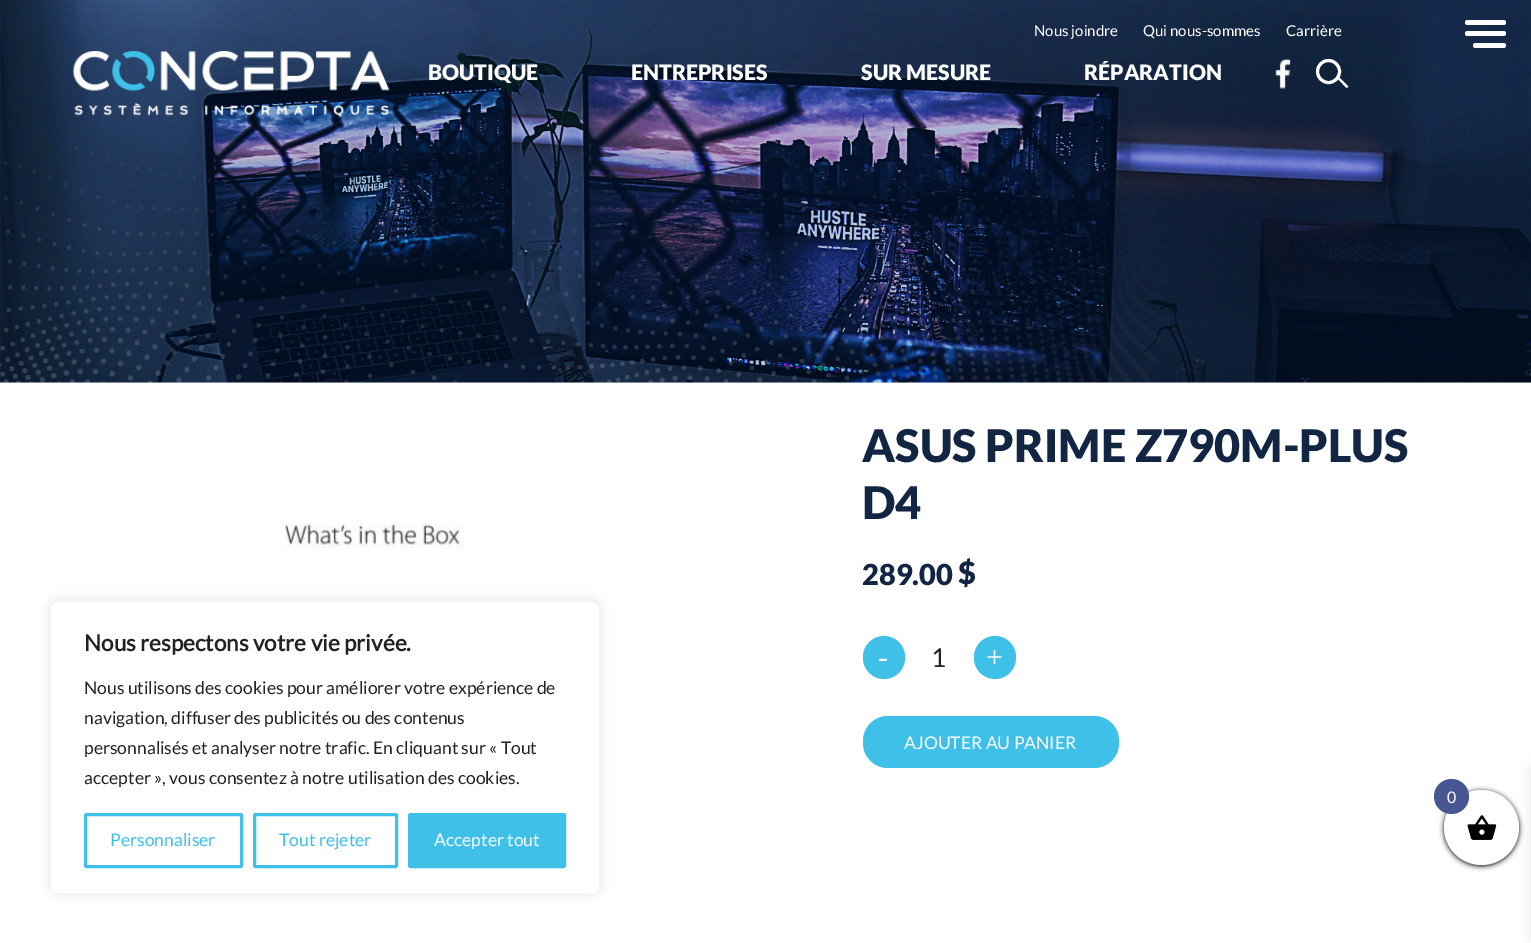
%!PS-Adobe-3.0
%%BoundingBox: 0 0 1531 943
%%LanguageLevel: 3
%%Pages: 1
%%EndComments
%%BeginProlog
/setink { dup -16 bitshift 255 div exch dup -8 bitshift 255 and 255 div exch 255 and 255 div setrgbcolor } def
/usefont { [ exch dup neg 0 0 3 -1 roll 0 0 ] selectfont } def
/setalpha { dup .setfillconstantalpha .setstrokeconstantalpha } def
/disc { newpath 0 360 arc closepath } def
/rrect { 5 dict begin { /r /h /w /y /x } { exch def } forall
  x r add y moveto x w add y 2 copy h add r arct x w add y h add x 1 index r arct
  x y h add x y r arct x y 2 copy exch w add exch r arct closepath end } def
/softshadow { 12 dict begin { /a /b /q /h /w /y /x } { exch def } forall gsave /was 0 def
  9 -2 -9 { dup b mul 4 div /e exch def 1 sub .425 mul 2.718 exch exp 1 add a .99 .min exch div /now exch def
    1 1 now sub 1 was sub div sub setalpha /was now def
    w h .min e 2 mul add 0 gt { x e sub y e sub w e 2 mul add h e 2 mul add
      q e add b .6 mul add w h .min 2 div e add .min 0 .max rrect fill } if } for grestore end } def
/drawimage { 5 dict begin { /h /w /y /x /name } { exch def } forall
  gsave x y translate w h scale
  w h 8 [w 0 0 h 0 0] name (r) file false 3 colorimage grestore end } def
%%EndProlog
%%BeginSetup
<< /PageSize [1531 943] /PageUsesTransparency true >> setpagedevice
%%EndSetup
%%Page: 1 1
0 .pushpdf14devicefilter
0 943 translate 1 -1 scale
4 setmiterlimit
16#EBF0F4 setink
0 0 1531 943 rectfill
(img1.raw) 0 0 1531 383 drawimage
/Lato-Regular 15 usefont
16#FFFFFF setink
[
    [(Nous joindre) 1034 36]
    [(Qui nous-sommes) 1143 36]
    [(Carrière) 1286 36]
] { aload pop moveto show } forall
1465 20 41 5 2.5 rrect fill
1465 31 41 5 2.5 rrect fill
1473 43 33 5 2.5 rrect fill
(img2.raw) 73 51 317 66 drawimage
/Lato-Black 21.25 usefont
[
    [(BOUTIQUE) 428 80]
    [(ENTREPRISES) 631 80]
    [(SUR MESURE) 861 80]
    [(RÉPARATION) 1084 80]
] { aload pop moveto show } forall
(img3.raw) 1275 58 16 31 drawimage
1339.5 77.5 moveto 1348.5 86.5 lineto 1346.5 88 lineto 1338 79 lineto closepath fill
3 setlinewidth
1328.5 71.5 11 disc stroke
0 383 1531 560 rectfill
(img4.raw) 212 523 332 78 drawimage
16#ACABAB setink
50 600 550 293 8 6 0.3 softshadow
16#FFFFFF setink
50.5 601.5 549 292 7.5 rrect gsave fill grestore
16#F4F4F4 setink
1 setlinewidth
stroke
/Lato-Bold 22.5 usefont
16#222222 setink
84 651 moveto (Nous respectons votre vie privée.) show
/Lato-Regular 17.5 usefont
[
    [(Nous utilisons des cookies pour améliorer votre expérience de) 84 694]
    [(navigation, diffuser des publicités ou des contenus) 84 724]
    [(personnalisés et analyser notre trafic. En cliquant sur « Tout) 84 754]
    [(accepter », vous consentez à notre utilisation des cookies.) 84 784]
] { aload pop moveto show } forall
16#3EC0E8 setink
3 setlinewidth
85.5 814.5 156 52 1 rrect stroke
110 846 moveto (Personnaliser) show
254.5 814.5 142 52 1 rrect stroke
279 846 moveto (Tout rejeter) show
409.5 814.5 155 52 1 rrect gsave fill grestore
stroke
16#FFFFFF setink
434 846 moveto (Accepter tout) show
/Lato-Black 45 usefont
16#122542 setink
862 462 moveto (ASUS PRIME Z790M-PLUS) show
862 519 moveto (D4) show
/Lato-Black 29 usefont
862 585 moveto (289.00) show
/Lato-Black 31 usefont
958 584 moveto ($) show
16#3EC0E8 setink
863 636 42 43 21 rrect fill
/LiberationSerif-Regular 30 usefont
16#FFFFFF setink
878 667 moveto (-) show
/Lato-Regular 26 usefont
16#222222 setink
931 667 moveto (1) show
16#3EC0E8 setink
974 636 42 43 21 rrect fill
/LiberationSerif-Regular 30 usefont
16#FFFFFF setink
986 667 moveto (+) show
16#3EC0E8 setink
863 716 256 52 25 rrect fill
/Lato-Regular 17.5 usefont
16#FFFFFF setink
904 749 moveto (AJOUTER AU PANIER) show
16#000000 setink
1444 791 75 75 37.5 2.5 1 softshadow
1531 768 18 170 0 6 0.1 softshadow
16#FFFFFF setink
1481.5 827.5 37.5 disc fill
16#485791 setink
1451.5 796.5 17.5 disc fill
/Lato-Regular 16 usefont
16#FFFFFF setink
1447 803 moveto (0) show
(img5.raw) 1467 815 30 25 drawimage
.poppdf14devicefilter showpage
%%EOF
